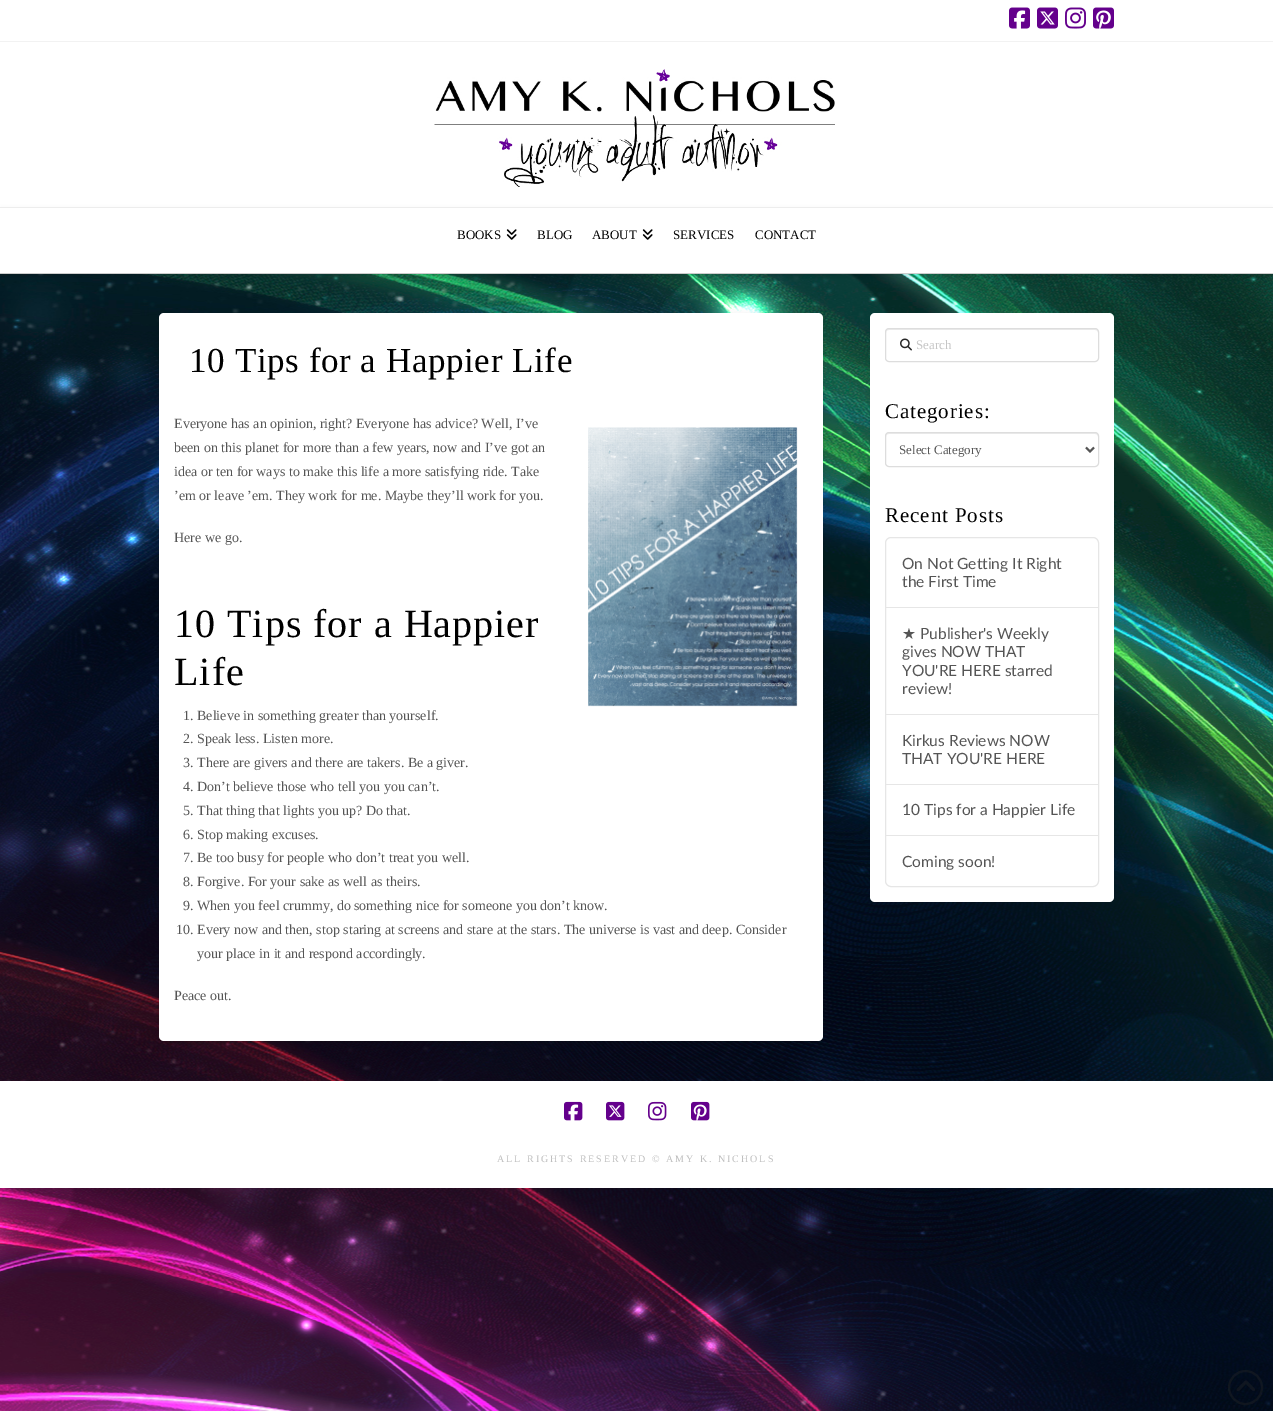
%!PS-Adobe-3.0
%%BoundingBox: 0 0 1273 1415
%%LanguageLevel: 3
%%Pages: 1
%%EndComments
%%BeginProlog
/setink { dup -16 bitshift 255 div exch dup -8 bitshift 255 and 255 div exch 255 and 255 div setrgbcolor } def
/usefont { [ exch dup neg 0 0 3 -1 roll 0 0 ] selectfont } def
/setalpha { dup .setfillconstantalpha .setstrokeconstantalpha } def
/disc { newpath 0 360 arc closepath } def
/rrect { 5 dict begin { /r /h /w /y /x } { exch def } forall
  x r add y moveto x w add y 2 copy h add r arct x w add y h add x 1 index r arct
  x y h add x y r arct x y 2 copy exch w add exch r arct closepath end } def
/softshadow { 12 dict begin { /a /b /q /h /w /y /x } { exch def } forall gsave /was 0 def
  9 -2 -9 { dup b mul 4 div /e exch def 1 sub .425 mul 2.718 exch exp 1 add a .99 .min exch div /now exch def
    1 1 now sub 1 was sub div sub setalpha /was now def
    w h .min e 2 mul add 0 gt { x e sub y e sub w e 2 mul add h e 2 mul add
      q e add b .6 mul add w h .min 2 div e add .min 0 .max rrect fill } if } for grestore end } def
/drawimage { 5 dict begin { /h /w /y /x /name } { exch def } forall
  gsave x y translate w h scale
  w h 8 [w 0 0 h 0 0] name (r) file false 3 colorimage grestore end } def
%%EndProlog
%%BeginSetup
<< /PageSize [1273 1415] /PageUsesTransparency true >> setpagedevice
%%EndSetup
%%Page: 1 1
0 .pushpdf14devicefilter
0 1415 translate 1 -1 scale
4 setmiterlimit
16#FFFFFF setink
0 0 1273 1415 rectfill
(img1.raw) 0 274 1273 1137 drawimage
16#F2F2F2 setink
0 41 1273 1 rectfill
(img2.raw) 1009 7 21 22 drawimage
(img3.raw) 1037 7 21 22 drawimage
(img4.raw) 1065 7 21 22 drawimage
(img5.raw) 1093 7 21 22 drawimage
0 207 1273 1 rectfill
(img6.raw) 434 69 401 118 drawimage
16#000000 setink
0 210 1273 66 0 2.5 0.13 softshadow
16#FFFFFF setink
0 208 1273 65 rectfill
16#CCCCCC setink
0 273 1273 1 rectfill
/LiberationSerif-Regular 13 usefont
16#000000 setink
457 239 moveto (BOOKS) show
(img7.raw) 506 229 11 11 drawimage
537 239 moveto (BLOG) show
592 239 moveto (ABOUT) show
(img7.raw) 642 229 11 11 drawimage
673 239 moveto (SERVICES) show
755 239 moveto (CONTACT) show
159 315 664 728 5 2.5 0.13 softshadow
16#FFFFFF setink
159 313 664 728 5 rrect fill
/LiberationSerif-Regular 35 usefont
16#000000 setink
189 372 moveto 0.6 0 (10 Tips for a Happier Life) ashow
/LiberationSerif-Regular 14 usefont
16#555555 setink
174 428 moveto (Everyone has an opinion, right? Everyone has advice? Well, I’ve) show
174 452 moveto (been on this planet for more than a few years, now and I’ve got an) show
(img8.raw) 588 427 210 280 drawimage
[
    [(idea or ten for ways to make this life a more satisfying ride. Take) 174 476]
    [(’em or leave ’em. They work for me. Maybe they’ll work for you.) 174 500]
    [(Here we go.) 174 542]
] { aload pop moveto show } forall
/LiberationSerif-Regular 40 usefont
16#000000 setink
174 637 moveto 1 0 (10 Tips for a Happier) ashow
174 685 moveto 1 0 (Life) ashow
/LiberationSerif-Regular 14 usefont
16#555555 setink
[
    [(1. Believe in something greater than yourself.) 183 720]
    [(2. Speak less. Listen more.) 183 743]
    [(3. There are givers and there are takers. Be a giver.) 183 767]
    [(4. Don’t believe those who tell you you can’t.) 183 791]
    [(5. That thing that lights you up? Do that.) 183 815]
    [(6. Stop making excuses.) 183 839]
    [(7. Be too busy for people who don’t treat you well.) 183 862]
    [(8. Forgive. For your sake as well as theirs.) 183 886]
    [(9. When you feel crummy, do something nice for someone you don’t know.) 183 910]
    [(10. Every now and then, stop staring at screens and stare at the stars. The universe is vast and deep. Consider) 176 934]
    [(your place in it and respond accordingly.) 197 958]
    [(Peace out.) 174 1000]
] { aload pop moveto show } forall
16#FFFFFF setink
870 313 244 589 5 rrect fill
16#ECECEC setink
889 330 moveto 1095 330 lineto 1097 330 1098 331 1098 333 curveto 1098 332 lineto 1098 330 1097 329 1095 329 curveto 889 329 lineto 887 329 886 330 886 332 curveto 886 333 lineto 886 331 887 330 889 330 curveto closepath fill
16#DDDDDD setink
885.5 328.5 213 33 3.5 rrect stroke
(img9.raw) 900 338 12 13 drawimage
/LiberationSerif-Regular 13 usefont
16#C5C5C5 setink
916 349 moveto (Search) show
/LiberationSerif-Regular 21 usefont
16#000000 setink
885 418 moveto 0.9 0 (Categories:) ashow
16#ECECEC setink
889 434 moveto 1095 434 lineto 1097 434 1098 435 1098 437 curveto 1098 436 lineto 1098 434 1097 433 1095 433 curveto 889 433 lineto 887 433 886 434 886 436 curveto 886 437 lineto 886 435 887 434 889 434 curveto closepath fill
16#DDDDDD setink
885.5 432.5 213 34 3.5 rrect stroke
16#555555 setink
2 setlinewidth
1086 447.5 moveto 1090 451.5 lineto 1094 447.5 lineto stroke
/LiberationSerif-Regular 13 usefont
899 454 moveto (Select Category) show
/LiberationSerif-Regular 21 usefont
16#000000 setink
885 522 moveto 0.9 0 (Recent Posts) ashow
16#E6E6E6 setink
1 setlinewidth
885.5 537.5 213 349 5.5 rrect stroke
886 607 212 1 rectfill
/Lato-Regular 15.5 usefont
16#555555 setink
902 569 moveto (On Not Getting It Right) show
902 587 moveto (the First Time) show
16#E6E6E6 setink
886 714 212 1 rectfill
/DejaVuSans-Regular 15.5 usefont
16#555555 setink
902 639 moveto (★) show
/Lato-Regular 15.5 usefont
[
    [(Publisher's Weekly) 920 639]
    [(gives NOW THAT) 902 657]
    [(YOU'RE HERE starred) 902 676]
    [(review!) 902 694]
] { aload pop moveto show } forall
16#E6E6E6 setink
886 784 212 1 rectfill
16#555555 setink
902 746 moveto (Kirkus Reviews NOW) show
902 764 moveto (THAT YOU'RE HERE) show
16#E6E6E6 setink
886 835 212 1 rectfill
16#555555 setink
902 815 moveto (10 Tips for a Happier Life) show
902 867 moveto (Coming soon!) show
16#FFFFFF setink
0 1081 1273 107 rectfill
(img10.raw) 564 1101 19 20 drawimage
(img11.raw) 606 1101 19 20 drawimage
(img12.raw) 648 1101 19 20 drawimage
(img13.raw) 691 1101 19 20 drawimage
/LiberationSerif-Regular 10 usefont
16#BDBDBD setink
497 1162 moveto 2 0 (ALL RIGHTS RESERVED © AMY K. NICHOLS) ashow
0.38 setalpha
16#272727 setink
2 setlinewidth
1245.5 1387.5 16.5 disc stroke
1 setalpha
(img14.raw) 1236 1380 19 11 drawimage
.poppdf14devicefilter showpage
%%EOF
